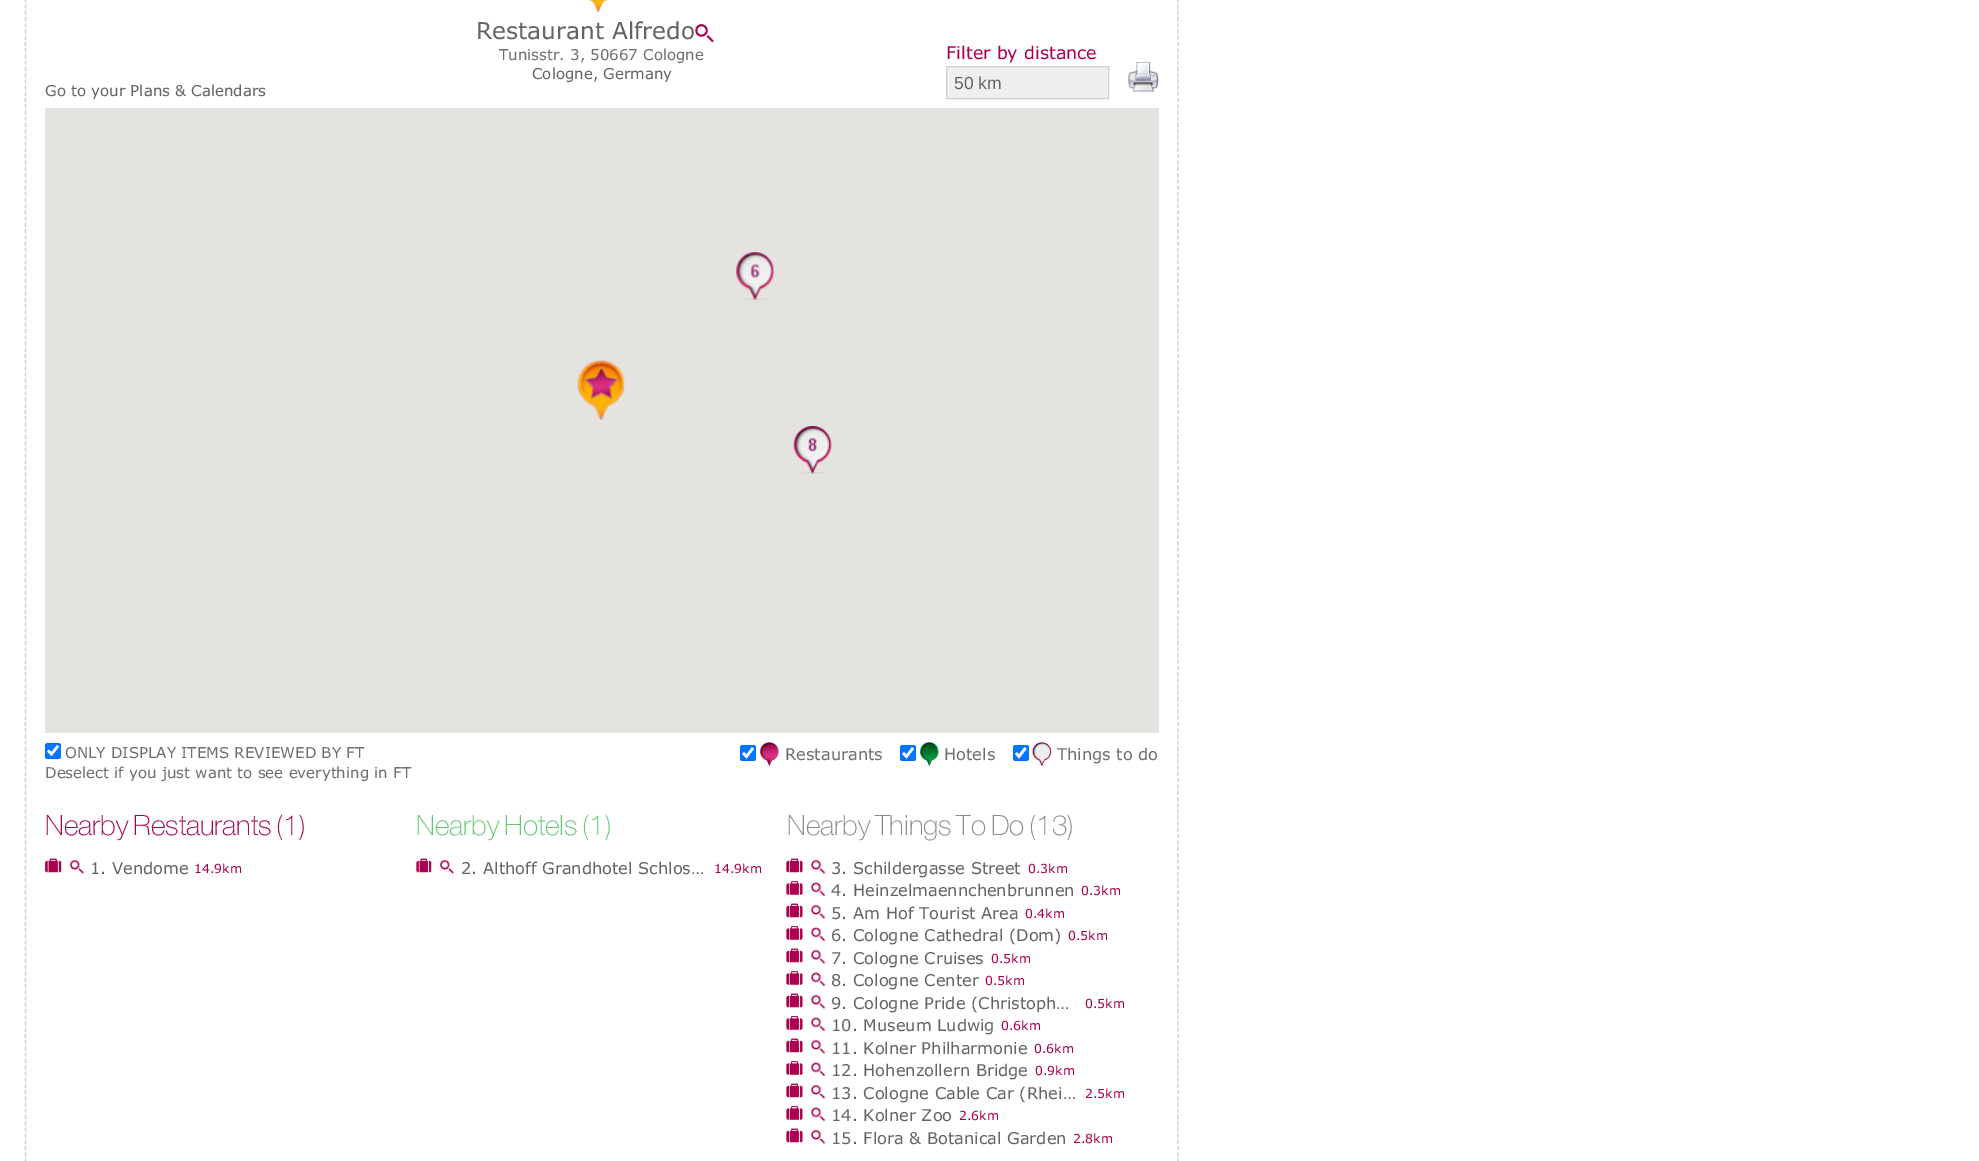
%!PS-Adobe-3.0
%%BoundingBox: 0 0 1979 1161
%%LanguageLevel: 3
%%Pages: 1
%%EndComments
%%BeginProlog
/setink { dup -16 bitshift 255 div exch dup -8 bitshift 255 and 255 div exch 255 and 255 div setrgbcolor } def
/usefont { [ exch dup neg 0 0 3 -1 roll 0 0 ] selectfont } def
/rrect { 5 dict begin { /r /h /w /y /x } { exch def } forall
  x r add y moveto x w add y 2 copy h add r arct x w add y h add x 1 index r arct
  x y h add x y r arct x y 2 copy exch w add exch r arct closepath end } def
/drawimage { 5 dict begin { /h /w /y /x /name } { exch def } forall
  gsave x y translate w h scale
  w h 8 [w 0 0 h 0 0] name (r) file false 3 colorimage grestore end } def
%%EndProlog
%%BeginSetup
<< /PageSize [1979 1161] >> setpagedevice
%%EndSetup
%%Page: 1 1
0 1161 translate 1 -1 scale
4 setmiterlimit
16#FFFFFF setink
0 0 1979 1161 rectfill
16#CFCFCF setink
1.2 setlinewidth
[3.75 2.49] 0 setdash
1178 -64 moveto 1178 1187.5 lineto stroke
25.5 -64 moveto 25.5 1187.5 lineto stroke
(img1.raw) 588 0 19 13 drawimage
/Verdana-Regular 23.25 usefont
16#646464 setink
476 39 moveto (Restaurant Alfredo) show
(img2.raw) 695 23 19 20 drawimage
/Verdana-Regular 15 usefont
16#6F6F6F setink
499 60 moveto (Tunisstr. 3, 50667 Cologne) show
16#646464 setink
532 79 moveto (Cologne, Germany) show
45 96 moveto (Go to your Plans & Calendars) show
/Verdana-Regular 17.5 usefont
16#AA004F setink
946 59 moveto (Filter by distance) show
16#EFEFEF setink
946.5 66.5 moveto 1108.5 66.5 lineto 1108.5 98.5 lineto 946.5 98.5 lineto closepath gsave fill grestore
16#D0D0D0 setink
1 setlinewidth
[] 0 setdash
stroke
/LiberationSans-Regular 17.5 usefont
16#646464 setink
954 89 moveto (50 km) show
(img3.raw) 1128 62 31 31 drawimage
16#E5E3DF setink
45 108 1114 625 rectfill
(img4.raw) 736 252 39 49 drawimage
(img5.raw) 577 360 48 60 drawimage
(img6.raw) 793 426 39 48 drawimage
16#0075FF setink
45 743 16 16 2.5 rrect fill
16#FFFFFF setink
2.6 setlinewidth
48 750.5 moveto 51.5 754 lineto 58 746 lineto stroke
/Verdana-Regular 15 usefont
16#6F6F6F setink
65 758 moveto (ONLY DISPLAY ITEMS REVIEWED BY FT) show
16#0075FF setink
740 745 16 16 2.5 rrect fill
16#FFFFFF setink
743 753 moveto 746.5 756.5 lineto 753 748 lineto stroke
(img7.raw) 760 742 19 24 drawimage
/Verdana-Regular 16.25 usefont
16#6F6F6F setink
785 760 moveto (Restaurants) show
16#0075FF setink
900 745 16 16 2.5 rrect fill
16#FFFFFF setink
903 753 moveto 906.5 756.5 lineto 913 748 lineto stroke
(img8.raw) 920 742 19 24 drawimage
16#6F6F6F setink
944 760 moveto (Hotels) show
16#0075FF setink
1013 745 16 16 2.5 rrect fill
16#FFFFFF setink
1016 753 moveto 1019 756.5 lineto 1025.5 748 lineto stroke
(img9.raw) 1032 742 20 24 drawimage
16#6F6F6F setink
1057 760 moveto (Things to do) show
/Verdana-Regular 15 usefont
45 778 moveto (Deselect if you just want to see everything in FT) show
/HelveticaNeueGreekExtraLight-ExtraLight 30 usefont
16#AA004F setink
45 835 moveto (Nearby Restaurants \(1\)) show
(img10.raw) 45 858 17 15 drawimage
(img11.raw) 70 859 14 15 drawimage
/Verdana-Regular 16.25 usefont
16#646464 setink
90 874 moveto (1. Vendome) show
/Verdana-Regular 12.5 usefont
16#AA004F setink
194 873 moveto (14.9km) show
/HelveticaNeueGreekExtraLight-ExtraLight 30 usefont
16#64C774 setink
416 835 moveto (Nearby Hotels \(1\)) show
(img12.raw) 416 858 16 15 drawimage
(img13.raw) 440 859 14 15 drawimage
/Verdana-Regular 16.25 usefont
16#646464 setink
461 874 moveto (2. Althoff Grandhotel Schlos…) show
/Verdana-Regular 12.5 usefont
16#AA004F setink
714 873 moveto (14.9km) show
/HelveticaNeueGreekExtraLight-ExtraLight 30 usefont
16#8A8A8A setink
787 835 moveto (Nearby Things To Do \(13\)) show
(img14.raw) 786 858 17 15 drawimage
(img15.raw) 811 859 14 15 drawimage
/Verdana-Regular 16.25 usefont
16#646464 setink
831 874 moveto (3. Schildergasse Street) show
/Verdana-Regular 12.5 usefont
16#AA004F setink
1028 873 moveto (0.3km) show
(img16.raw) 786 881 17 14 drawimage
(img17.raw) 811 882 14 14 drawimage
/Verdana-Regular 16.25 usefont
16#646464 setink
831 896 moveto (4. Heinzelmaennchenbrunnen) show
/Verdana-Regular 12.5 usefont
16#AA004F setink
1081 895 moveto (0.3km) show
(img14.raw) 786 903 17 15 drawimage
(img15.raw) 811 904 14 15 drawimage
/Verdana-Regular 16.25 usefont
16#646464 setink
831 919 moveto (5. Am Hof Tourist Area) show
/Verdana-Regular 12.5 usefont
16#AA004F setink
1025 918 moveto (0.4km) show
(img16.raw) 786 926 17 14 drawimage
(img17.raw) 811 927 14 14 drawimage
/Verdana-Regular 16.25 usefont
16#646464 setink
831 941 moveto (6. Cologne Cathedral \(Dom\)) show
/Verdana-Regular 12.5 usefont
16#AA004F setink
1068 940 moveto (0.5km) show
(img14.raw) 786 948 17 15 drawimage
(img15.raw) 811 949 14 15 drawimage
/Verdana-Regular 16.25 usefont
16#646464 setink
831 964 moveto (7. Cologne Cruises) show
/Verdana-Regular 12.5 usefont
16#AA004F setink
991 963 moveto (0.5km) show
(img16.raw) 786 971 17 14 drawimage
(img17.raw) 811 972 14 14 drawimage
/Verdana-Regular 16.25 usefont
16#646464 setink
831 986 moveto (8. Cologne Center) show
/Verdana-Regular 12.5 usefont
16#AA004F setink
985 985 moveto (0.5km) show
(img14.raw) 786 993 17 15 drawimage
(img15.raw) 811 994 14 15 drawimage
/Verdana-Regular 16.25 usefont
16#646464 setink
831 1009 moveto (9. Cologne Pride \(Christoph…) show
/Verdana-Regular 12.5 usefont
16#AA004F setink
1085 1008 moveto (0.5km) show
(img16.raw) 786 1016 17 14 drawimage
(img17.raw) 811 1017 14 14 drawimage
/Verdana-Regular 16.25 usefont
16#646464 setink
831 1031 moveto (10. Museum Ludwig) show
/Verdana-Regular 12.5 usefont
16#AA004F setink
1001 1030 moveto (0.6km) show
(img14.raw) 786 1038 17 15 drawimage
(img15.raw) 811 1039 14 15 drawimage
/Verdana-Regular 16.25 usefont
16#646464 setink
831 1054 moveto (11. Kolner Philharmonie) show
/Verdana-Regular 12.5 usefont
16#AA004F setink
1034 1053 moveto (0.6km) show
(img16.raw) 786 1061 17 14 drawimage
(img17.raw) 811 1062 14 14 drawimage
/Verdana-Regular 16.25 usefont
16#646464 setink
831 1076 moveto (12. Hohenzollern Bridge) show
/Verdana-Regular 12.5 usefont
16#AA004F setink
1035 1075 moveto (0.9km) show
(img14.raw) 786 1083 17 15 drawimage
(img15.raw) 811 1084 14 15 drawimage
/Verdana-Regular 16.25 usefont
16#646464 setink
831 1099 moveto (13. Cologne Cable Car \(Rhei…) show
/Verdana-Regular 12.5 usefont
16#AA004F setink
1085 1098 moveto (2.5km) show
(img16.raw) 786 1106 17 14 drawimage
(img17.raw) 811 1107 14 14 drawimage
/Verdana-Regular 16.25 usefont
16#646464 setink
831 1121 moveto (14. Kolner Zoo) show
/Verdana-Regular 12.5 usefont
16#AA004F setink
959 1120 moveto (2.6km) show
(img14.raw) 786 1128 17 15 drawimage
(img15.raw) 811 1129 14 15 drawimage
/Verdana-Regular 16.25 usefont
16#646464 setink
831 1144 moveto (15. Flora & Botanical Garden) show
/Verdana-Regular 12.5 usefont
16#AA004F setink
1073 1143 moveto (2.8km) show
showpage
%%EOF
